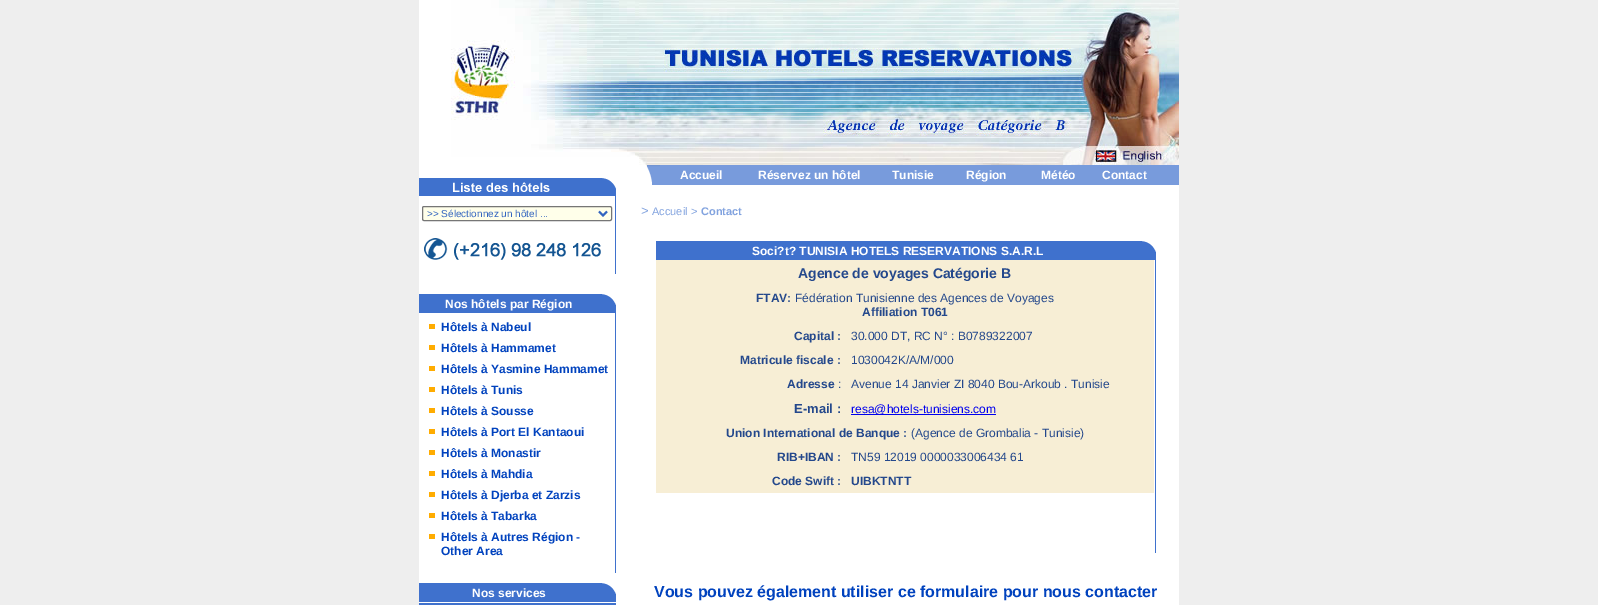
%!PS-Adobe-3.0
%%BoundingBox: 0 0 1598 605
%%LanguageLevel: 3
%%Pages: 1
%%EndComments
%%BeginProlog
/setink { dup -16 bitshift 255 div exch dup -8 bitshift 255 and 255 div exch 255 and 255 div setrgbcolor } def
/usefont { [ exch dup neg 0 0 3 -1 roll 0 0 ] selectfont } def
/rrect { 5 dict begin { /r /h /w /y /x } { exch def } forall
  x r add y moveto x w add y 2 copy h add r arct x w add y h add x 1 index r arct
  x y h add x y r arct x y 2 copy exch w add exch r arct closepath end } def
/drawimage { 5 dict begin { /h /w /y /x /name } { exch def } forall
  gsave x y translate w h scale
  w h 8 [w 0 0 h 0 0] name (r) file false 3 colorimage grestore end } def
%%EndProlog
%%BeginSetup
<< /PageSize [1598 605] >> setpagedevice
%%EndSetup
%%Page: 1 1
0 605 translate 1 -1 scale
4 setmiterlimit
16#EEEEEE setink
0 0 1598 605 rectfill
16#FFFFFF setink
419 0 760 605 rectfill
(img1.raw) 451 0 188 157 drawimage
(img2.raw) 639 0 540 165 drawimage
(img3.raw) 419 178 195 7 drawimage
(img4.raw) 646 165 14 20 drawimage
16#789BDC setink
660 165 519 20 rectfill
/LiberationSans-Bold 12 usefont
16#FFFFFF setink
[
    [(Accueil) 680 179]
    [(Réservez un hôtel) 758 179]
    [(Tunisie) 892 179]
    [(Région) 966 179]
    [(Météo) 1041 179]
    [(Contact) 1102 179]
] { aload pop moveto show } forall
(img5.raw) 419 185 197 11 drawimage
16#FFFFEA setink
422.5 206.5 189 14 1.5 rrect gsave fill grestore
16#767676 setink
stroke
16#3264C0 setink
2 setlinewidth
599 211.5 moveto 603 215.5 lineto 607 211.5 lineto stroke
/LiberationSans-Regular 10 usefont
427 217 moveto (>> Sélectionnez un hôtel ...) show
16#3F71CD setink
615 196 1 78 rectfill
(img6.raw) 424 238 177 22 drawimage
419 294 180 19 rectfill
/LiberationSans-Bold 12 usefont
16#FFFFFF setink
445 308 moveto (Nos hôtels par Région) show
(img7.raw) 599 294 17 19 drawimage
16#FFAC00 setink
429 324 6 5 rectfill
16#0042BE setink
441 331 moveto (Hôtels à Nabeul) show
16#FFAC00 setink
429 345 6 5 rectfill
16#0042BE setink
441 352 moveto (Hôtels à Hammamet) show
16#FFAC00 setink
429 366 6 5 rectfill
16#0042BE setink
441 373 moveto (Hôtels à Yasmine Hammamet) show
16#FFAC00 setink
429 387 6 5 rectfill
16#0042BE setink
441 394 moveto (Hôtels à Tunis) show
16#FFAC00 setink
429 408 6 5 rectfill
16#0042BE setink
441 415 moveto (Hôtels à Sousse) show
16#FFAC00 setink
429 429 6 5 rectfill
16#0042BE setink
441 436 moveto (Hôtels à Port El Kantaoui) show
16#FFAC00 setink
429 450 6 5 rectfill
16#0042BE setink
441 457 moveto (Hôtels à Monastir) show
16#FFAC00 setink
429 471 6 5 rectfill
16#0042BE setink
441 478 moveto (Hôtels à Mahdia) show
16#FFAC00 setink
429 492 6 5 rectfill
16#0042BE setink
441 499 moveto (Hôtels à Djerba et Zarzis) show
16#FFAC00 setink
429 513 6 5 rectfill
16#0042BE setink
441 520 moveto (Hôtels à Tabarka) show
16#FFAC00 setink
429 534 6 5 rectfill
16#0042BE setink
441 541 moveto (Hôtels à Autres Région -) show
441 555 moveto (Other Area) show
16#3F71CD setink
615 313 1 260 rectfill
419 583 180 19 rectfill
16#FFFFFF setink
472 597 moveto (Nos services) show
(img7.raw) 599 583 17 19 drawimage
16#3F71CD setink
419 603 197 2 rectfill
/LiberationSans-Regular 13 usefont
16#82A3DF setink
641 215 moveto (>) show
/LiberationSans-Regular 11 usefont
652 215 moveto (Accueil) show
691 215 moveto (>) show
/LiberationSans-Bold 11 usefont
701 215 moveto (Contact) show
16#3F71CD setink
656 241 483 19 rectfill
/LiberationSans-Bold 12 usefont
16#FFFFFF setink
752 255 moveto (Soci?t? TUNISIA HOTELS RESERVATIONS S.A.R.L) show
(img7.raw) 1139 241 17 19 drawimage
16#F7EED5 setink
656 260 498 233 rectfill
/LiberationSans-Bold 14 usefont
16#24488C setink
798 278 moveto (Agence de voyages Catégorie B) show
/LiberationSans-Bold 12 usefont
756 302 moveto (FTAV:) show
/LiberationSans-Regular 12 usefont
795 302 moveto (Fédération Tunisienne des Agences de Voyages) show
/LiberationSans-Bold 12 usefont
862 316 moveto (Affiliation T061) show
794 340 moveto (Capital :) show
/LiberationSans-Regular 12 usefont
851 340 moveto (30.000 DT, RC N° : B0789322007) show
/LiberationSans-Bold 12 usefont
740 364 moveto (Matricule fiscale :) show
/LiberationSans-Regular 12 usefont
851 364 moveto (1030042K/A/M/000) show
/LiberationSans-Bold 12 usefont
787 388 moveto (Adresse) show
/LiberationSans-Regular 12 usefont
838 388 moveto (:) show
851 388 moveto (Avenue 14 Janvier ZI 8040 Bou-Arkoub . Tunisie) show
/LiberationSans-Bold 13 usefont
794 413 moveto (E-mail :) show
16#0000EE setink
851 414 145 1 rectfill
/LiberationSans-Regular 12 usefont
851 413 moveto (resa@hotels-tunisiens.com) show
/LiberationSans-Bold 12 usefont
16#24488C setink
726 437 moveto (Union International de Banque :) show
/LiberationSans-Regular 12 usefont
911 437 moveto (\(Agence de Grombalia - Tunisie\)) show
/LiberationSans-Bold 12 usefont
777 461 moveto (RIB+IBAN :) show
/LiberationSans-Regular 12 usefont
851 461 moveto (TN59 12019 0000033006434 61) show
/LiberationSans-Bold 12 usefont
772 485 moveto (Code Swift :) show
851 485 moveto (UIBKTNTT) show
16#3F71CD setink
1155 260 1 293 rectfill
/LiberationSans-Bold 16 usefont
16#0042BE setink
654 597 moveto (Vous pouvez également utiliser ce formulaire pour nous contacter) show
showpage
%%EOF
